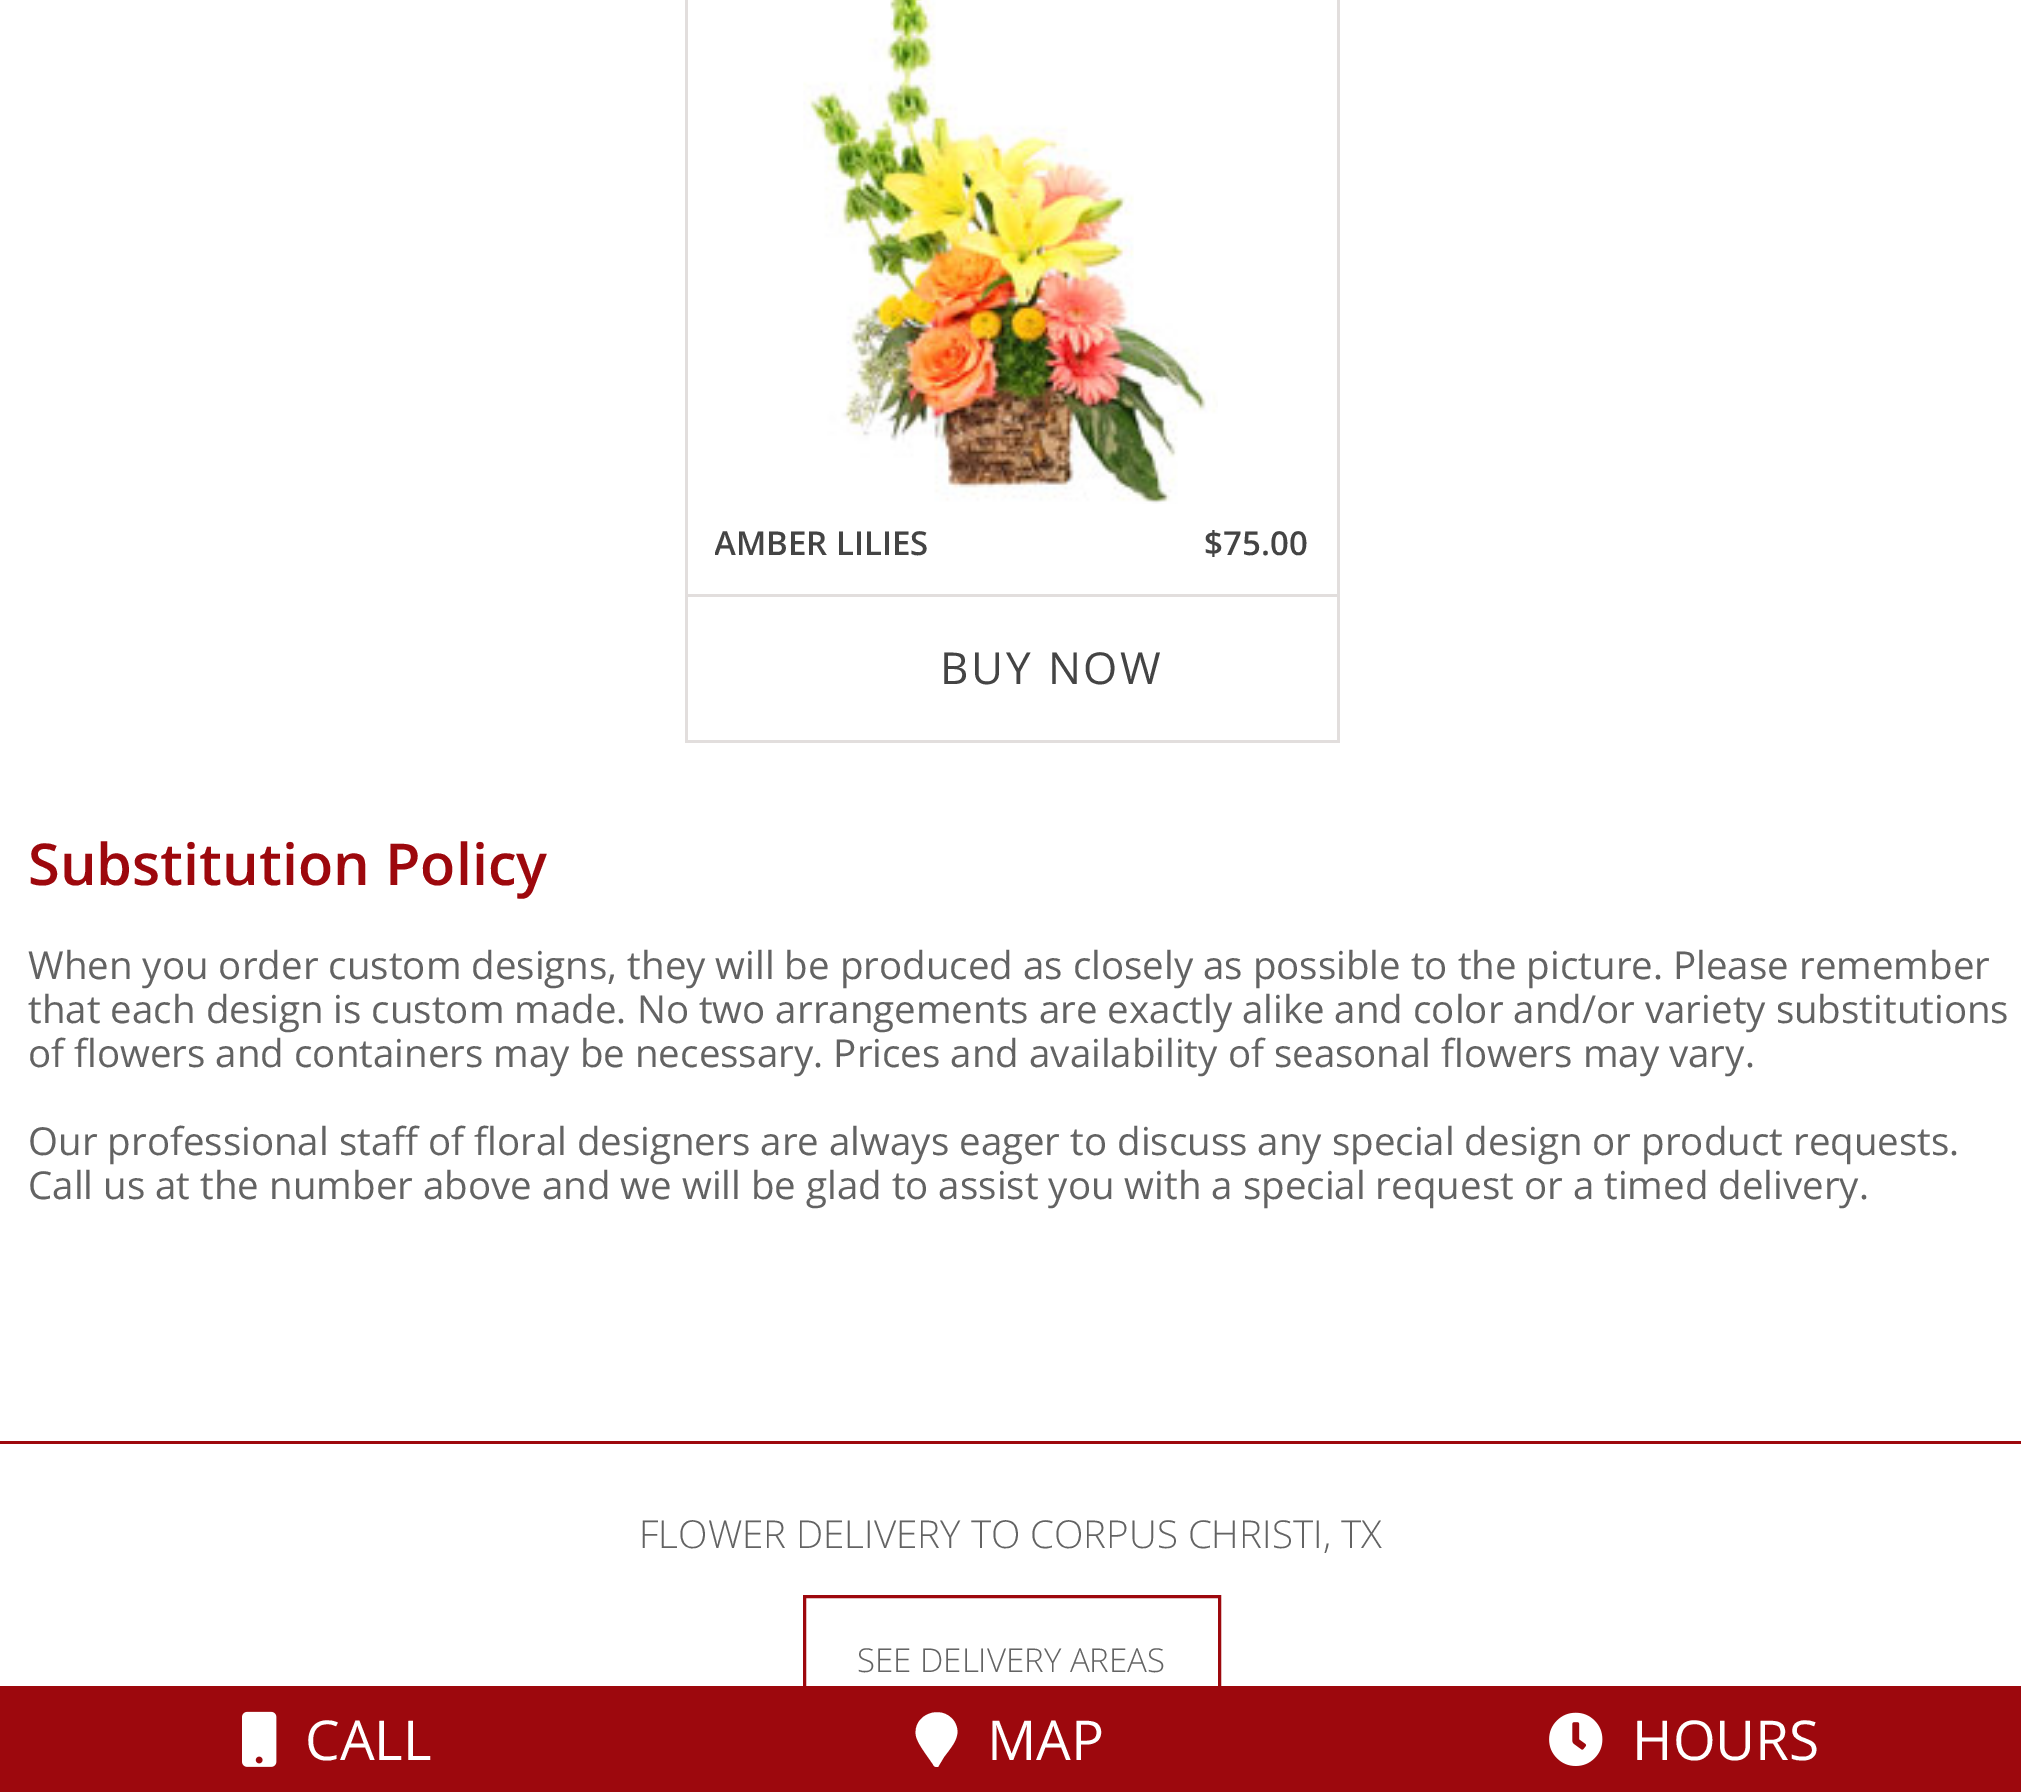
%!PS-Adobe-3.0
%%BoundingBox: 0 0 2021 1792
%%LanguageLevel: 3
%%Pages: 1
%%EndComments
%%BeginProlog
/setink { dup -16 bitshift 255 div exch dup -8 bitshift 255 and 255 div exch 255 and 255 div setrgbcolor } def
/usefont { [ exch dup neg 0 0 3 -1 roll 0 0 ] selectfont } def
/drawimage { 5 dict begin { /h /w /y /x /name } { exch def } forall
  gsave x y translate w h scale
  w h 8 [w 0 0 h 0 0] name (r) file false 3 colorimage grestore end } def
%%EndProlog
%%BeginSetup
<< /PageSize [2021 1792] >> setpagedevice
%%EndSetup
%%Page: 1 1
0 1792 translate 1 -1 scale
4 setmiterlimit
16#FFFFFF setink
0 0 2021 1792 rectfill
[
    [1337 0 3 743 16#E2DEDD]
    [685 740 654 3 16#E2DEDD]
    [685 0 3 743 16#E2DEDD]
] { aload pop setink rectfill } forall
(img1.raw) 803 0 415 504 drawimage
gsave
715 520 396 47 rectclip
/OpenSans-SemiBold 33 usefont
16#444444 setink
714 555 moveto (AMBER LILIES) show
grestore
/OpenSans-SemiBold 33 usefont
16#444444 setink
1204 555 moveto ($75.00) show
16#E2DEDD setink
688 594 649 3 rectfill
/OpenSans-Regular 44 usefont
16#444444 setink
940 684 moveto 2.75 0 (BUY NOW) ashow
/OpenSans-SemiBold 57.75 usefont
16#9D080D setink
28 885 moveto (Substitution Policy) show
/OpenSans-Regular 38.5 usefont
16#636363 setink
[
    [(When you order custom designs, they will be produced as closely as possible to the picture. Please remember) 28 979]
    [(that each design is custom made. No two arrangements are exactly alike and color and/or variety substitutions) 28 1023]
    [(of flowers and containers may be necessary. Prices and availability of seasonal flowers may vary.) 28 1067]
    [(Our professional staff of floral designers are always eager to discuss any special design or product requests.) 28 1155]
    [(Call us at the number above and we will be glad to assist you with a special request or a timed delivery.) 28 1199]
] { aload pop moveto show } forall
16#9D080D setink
0 1441 2021 3 rectfill
/OpenSans-Light 38.5 usefont
16#636363 setink
639 1548 moveto (FLOWER DELIVERY TO CORPUS CHRISTI, TX) show
16#9D080D setink
3 setlinewidth
804.5 1596.5 415 126 rectstroke
/OpenSans-Light 33 usefont
16#636363 setink
857 1672 moveto (SEE DELIVERY AREAS) show
16#9D080D setink
0 1686 2021 106 rectfill
(img2.raw) 242 1711 35 56 drawimage
/OpenSans-Regular 55 usefont
16#FFFFFF setink
305 1760 moveto (CALL) show
934 1766 moveto 930 1759 918 1745 916 1736 curveto 912 1715 941 1703 954 1721 curveto 963 1735 952 1746 944 1757 curveto 938 1767 lineto 936 1767 935 1767 934 1766 curveto closepath fill
987 1760 moveto (MAP) show
(img3.raw) 1549 1712 54 54 drawimage
1632 1760 moveto (HOURS) show
showpage
%%EOF
